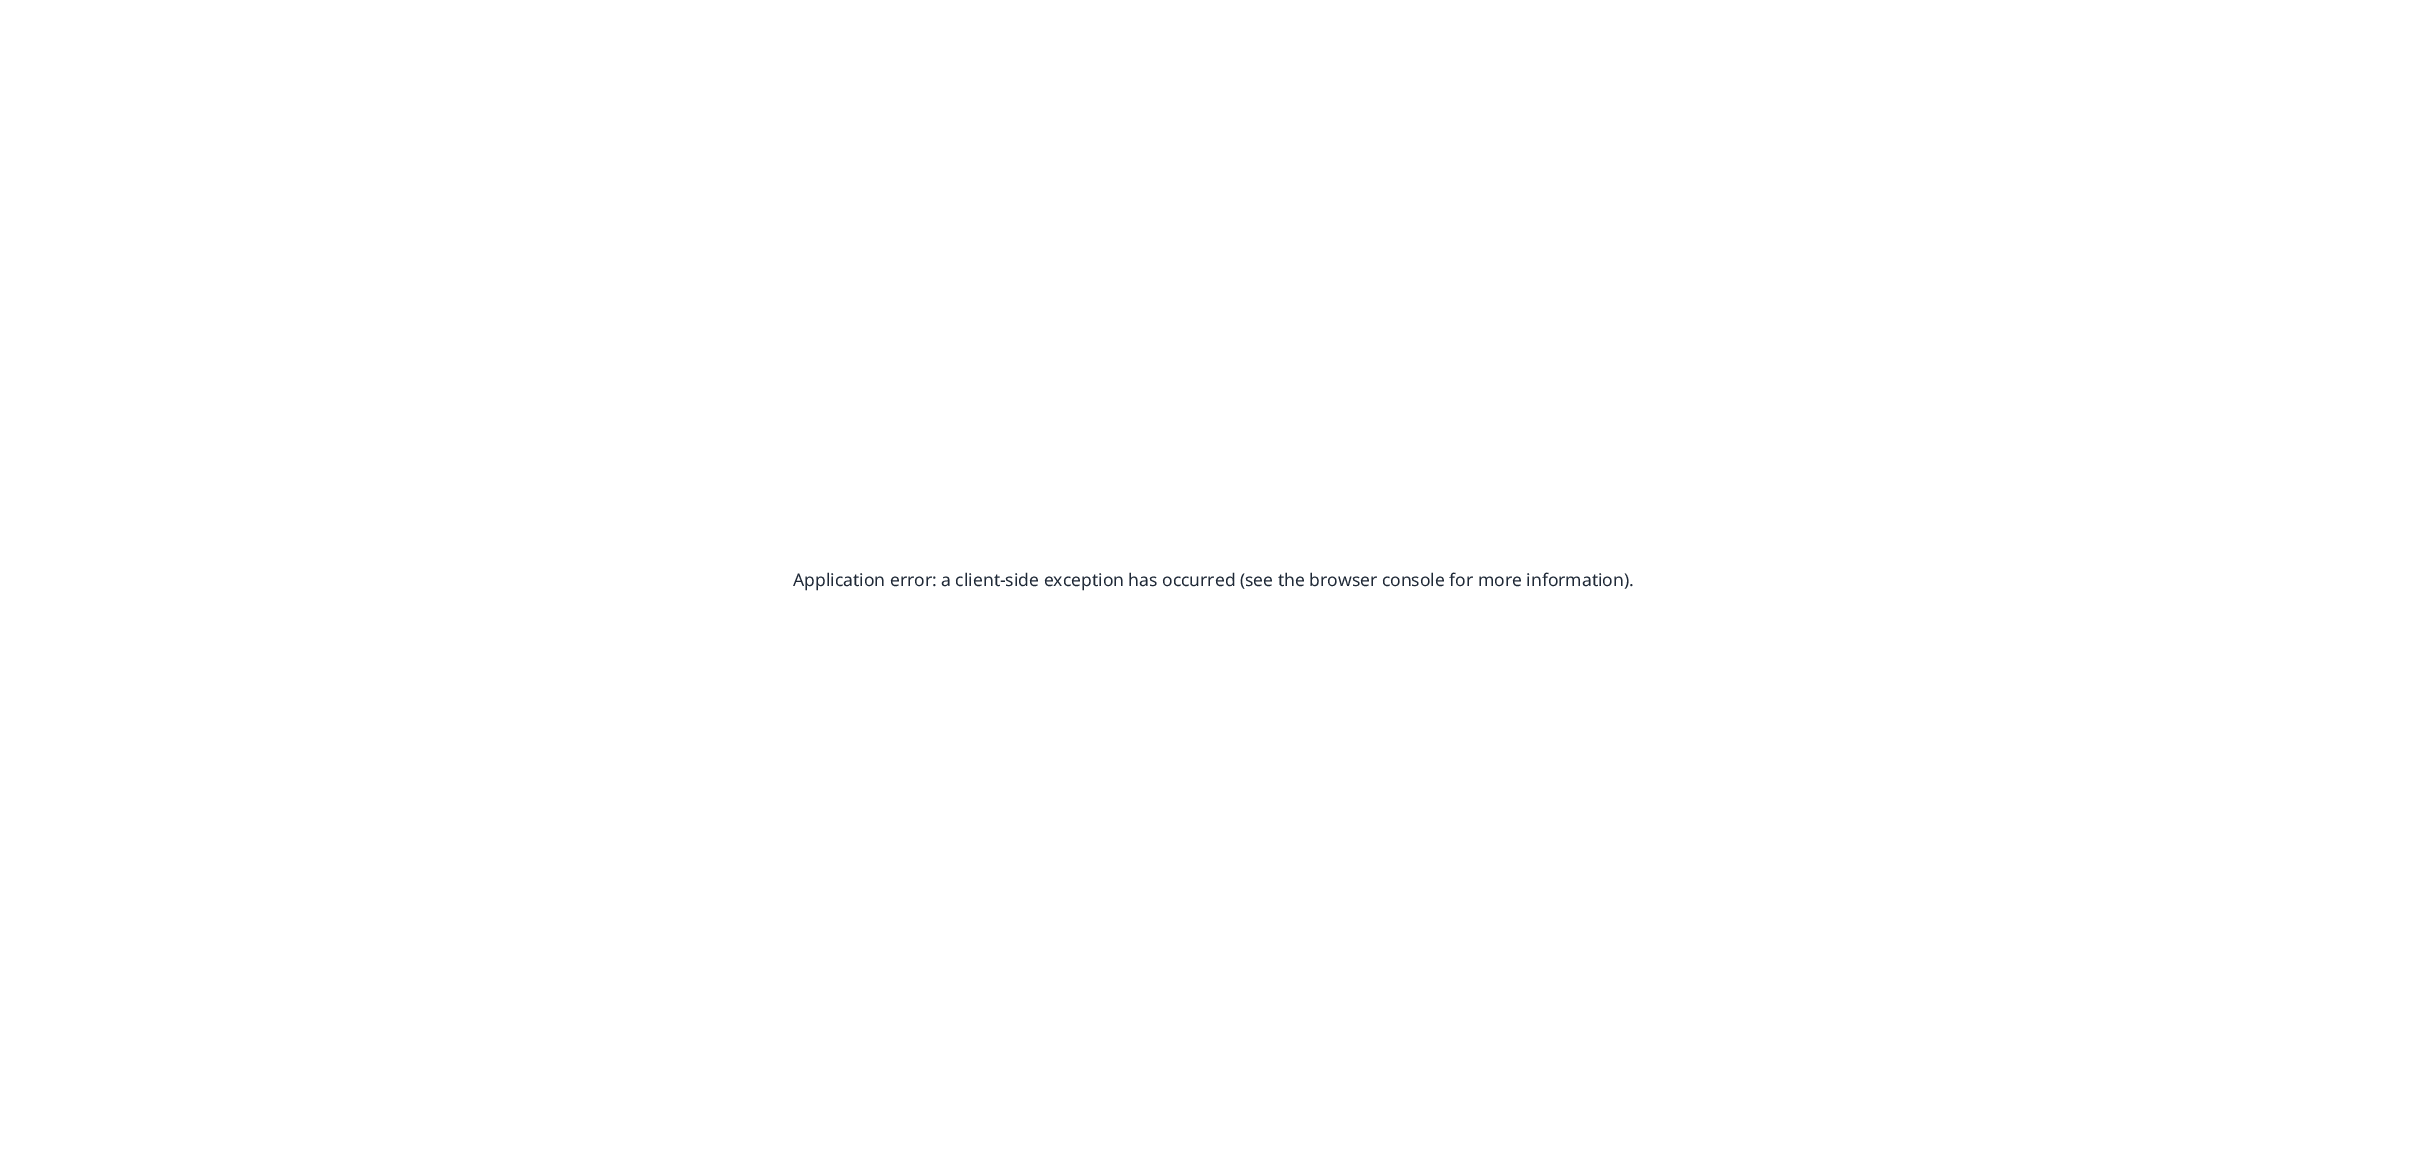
%!PS-Adobe-3.0
%%BoundingBox: 0 0 2426 1159
%%LanguageLevel: 3
%%Pages: 1
%%EndComments
%%BeginProlog
/setink { dup -16 bitshift 255 div exch dup -8 bitshift 255 and 255 div exch 255 and 255 div setrgbcolor } def
/usefont { [ exch dup neg 0 0 3 -1 roll 0 0 ] selectfont } def
%%EndProlog
%%BeginSetup
<< /PageSize [2426 1159] >> setpagedevice
%%EndSetup
%%Page: 1 1
0 1159 translate 1 -1 scale
4 setmiterlimit
16#FFFFFF setink
0 0 2426 1159 rectfill
/NotoSans-Regular 17.5 usefont
16#1F2937 setink
793 586 moveto (Application error: a client-side exception has occurred \(see the browser console for more information\).) show
showpage
%%EOF
